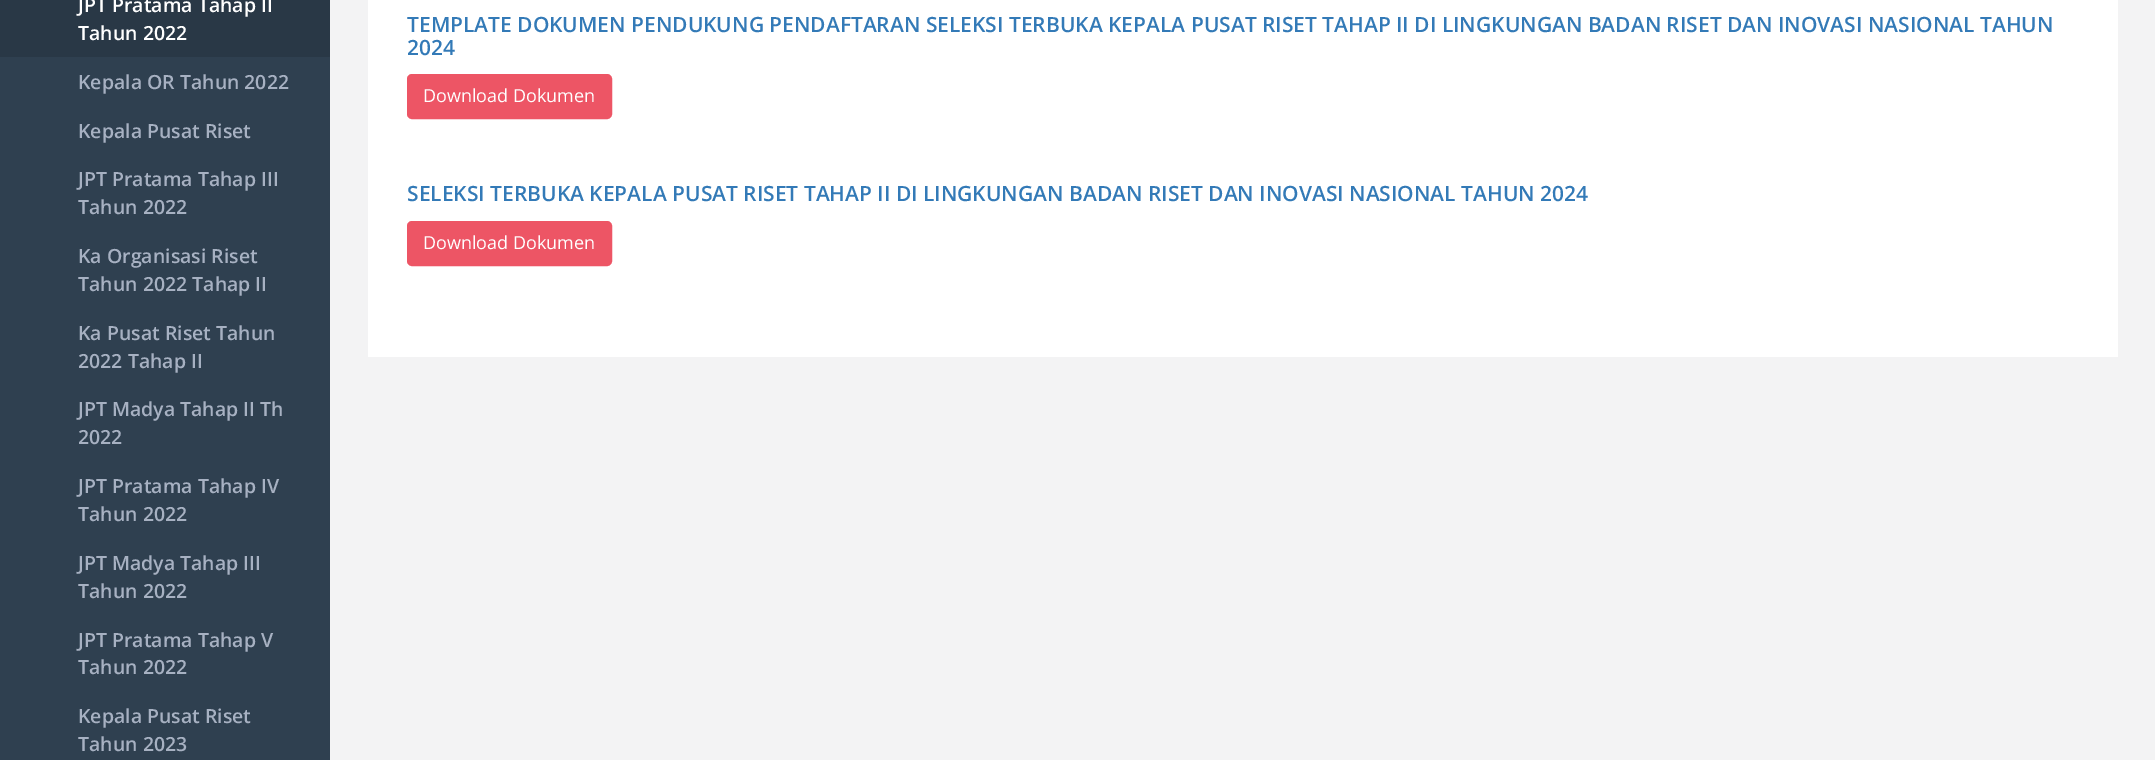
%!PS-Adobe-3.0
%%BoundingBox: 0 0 2155 760
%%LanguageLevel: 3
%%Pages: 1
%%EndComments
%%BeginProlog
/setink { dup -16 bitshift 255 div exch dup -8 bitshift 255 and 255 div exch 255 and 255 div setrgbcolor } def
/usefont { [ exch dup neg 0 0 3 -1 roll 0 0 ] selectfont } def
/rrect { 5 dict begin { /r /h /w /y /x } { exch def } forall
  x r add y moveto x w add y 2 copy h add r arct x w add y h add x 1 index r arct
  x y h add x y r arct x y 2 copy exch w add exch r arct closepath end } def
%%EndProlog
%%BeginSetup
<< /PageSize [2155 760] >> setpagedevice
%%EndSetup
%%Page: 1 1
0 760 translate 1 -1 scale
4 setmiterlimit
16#2F4050 setink
0 0 2155 760 rectfill
16#293846 setink
0 0 330 57 rectfill
/OpenSans-SemiBold 19.5 usefont
16#FFFFFF setink
78 12 moveto (JPT Pratama Tahap II) show
78 40 moveto (Tahun 2022) show
16#A7B1C2 setink
[
    [(Kepala OR Tahun 2022) 78 89]
    [(Kepala Pusat Riset) 78 138]
    [(JPT Pratama Tahap III) 78 186]
    [(Tahun 2022) 78 214]
    [(Ka Organisasi Riset) 78 263]
    [(Tahun 2022 Tahap II) 78 291]
    [(Ka Pusat Riset Tahun) 78 340]
    [(2022 Tahap II) 78 368]
    [(JPT Madya Tahap II Th) 78 416]
    [(2022) 78 444]
    [(JPT Pratama Tahap IV) 78 493]
    [(Tahun 2022) 78 521]
    [(JPT Madya Tahap III) 78 570]
    [(Tahun 2022) 78 598]
    [(JPT Pratama Tahap V) 78 647]
    [(Tahun 2022) 78 674]
    [(Kepala Pusat Riset) 78 723]
    [(Tahun 2023) 78 751]
] { aload pop moveto show } forall
16#F3F3F4 setink
330 0 1825 760 rectfill
16#FFFFFF setink
368 0 1750 357 rectfill
/OpenSans-SemiBold 21 usefont
16#337AB7 setink
407 32 moveto (TEMPLATE DOKUMEN PENDUKUNG PENDAFTARAN SELEKSI TERBUKA KEPALA PUSAT RISET TAHAP II DI LINGKUNGAN BADAN RISET DAN INOVASI NASIONAL TAHUN) show
407 55 moveto (2024) show
16#ED5565 setink
408 75 203 43 4 rrect gsave fill grestore
2 setlinewidth
stroke
/OpenSans-Regular 18 usefont
16#FFFFFF setink
423 102 moveto (Download Dokumen) show
/OpenSans-SemiBold 21 usefont
16#337AB7 setink
407 201 moveto (SELEKSI TERBUKA KEPALA PUSAT RISET TAHAP II DI LINGKUNGAN BADAN RISET DAN INOVASI NASIONAL TAHUN 2024) show
16#ED5565 setink
408 222 203 43 4 rrect gsave fill grestore
stroke
/OpenSans-Regular 18 usefont
16#FFFFFF setink
423 249 moveto (Download Dokumen) show
showpage
%%EOF
